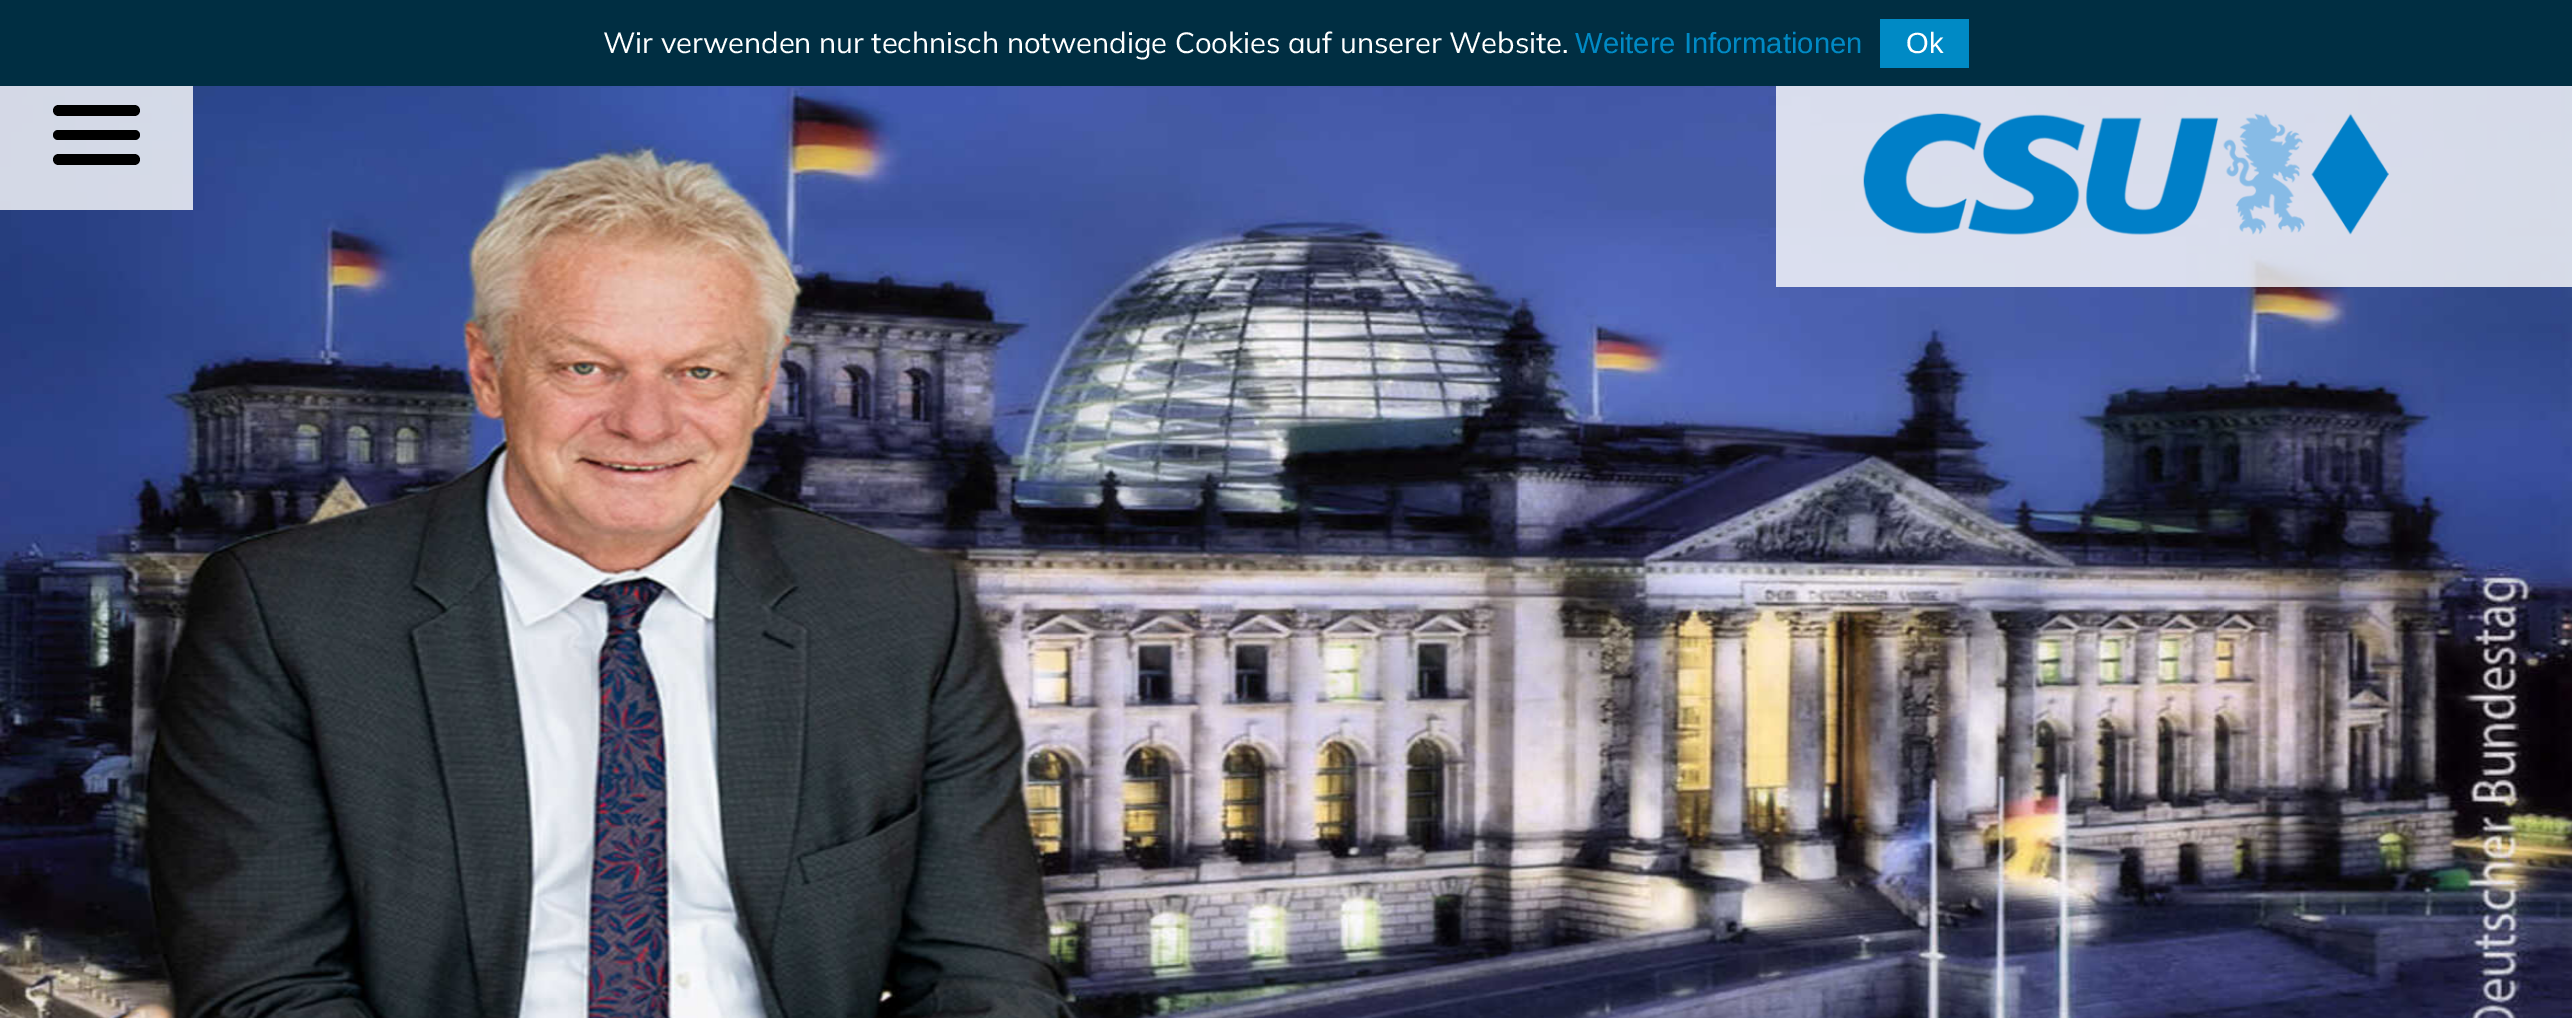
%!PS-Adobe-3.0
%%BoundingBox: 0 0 2572 1018
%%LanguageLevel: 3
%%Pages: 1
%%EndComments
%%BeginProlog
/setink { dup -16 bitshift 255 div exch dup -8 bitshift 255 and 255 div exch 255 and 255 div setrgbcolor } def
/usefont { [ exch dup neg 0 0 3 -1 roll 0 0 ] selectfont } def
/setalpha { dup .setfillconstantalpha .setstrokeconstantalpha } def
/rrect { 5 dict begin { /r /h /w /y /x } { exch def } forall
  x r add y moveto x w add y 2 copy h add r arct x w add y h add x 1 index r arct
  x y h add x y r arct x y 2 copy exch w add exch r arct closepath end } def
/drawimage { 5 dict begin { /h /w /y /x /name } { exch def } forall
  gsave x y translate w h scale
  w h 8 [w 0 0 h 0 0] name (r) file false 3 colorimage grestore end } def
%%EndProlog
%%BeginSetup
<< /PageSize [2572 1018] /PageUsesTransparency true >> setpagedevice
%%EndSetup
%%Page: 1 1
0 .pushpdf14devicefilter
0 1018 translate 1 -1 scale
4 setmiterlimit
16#FFFFFF setink
0 0 2572 1018 rectfill
16#002E42 setink
0 0 2572 86 rectfill
/Mulish-ExtraLight 29.2 usefont
16#FFFFFF setink
603 53 moveto (Wir verwenden nur technisch notwendige Cookies auf unserer Website.) show
/LiberationSans-Regular 29.2 usefont
16#008AC5 setink
1575 53 moveto (Weitere Informationen) show
1880 19 89 49 rectfill
16#FFFFFF setink
1906 53 moveto (Ok) show
(img1.raw) 0 86 2572 932 drawimage
0.8 setalpha
0 86 193 124 rectfill
1 setalpha
16#000000 setink
53 105 87 11 5.5 rrect fill
53 130 87 10 5 rrect fill
53 154 87 11 5.5 rrect fill
0.8 setalpha
16#FFFFFF setink
1776 86 796 201 rectfill
1 setalpha
(img2.raw) 1863 113 526 122 drawimage
.poppdf14devicefilter showpage
%%EOF
